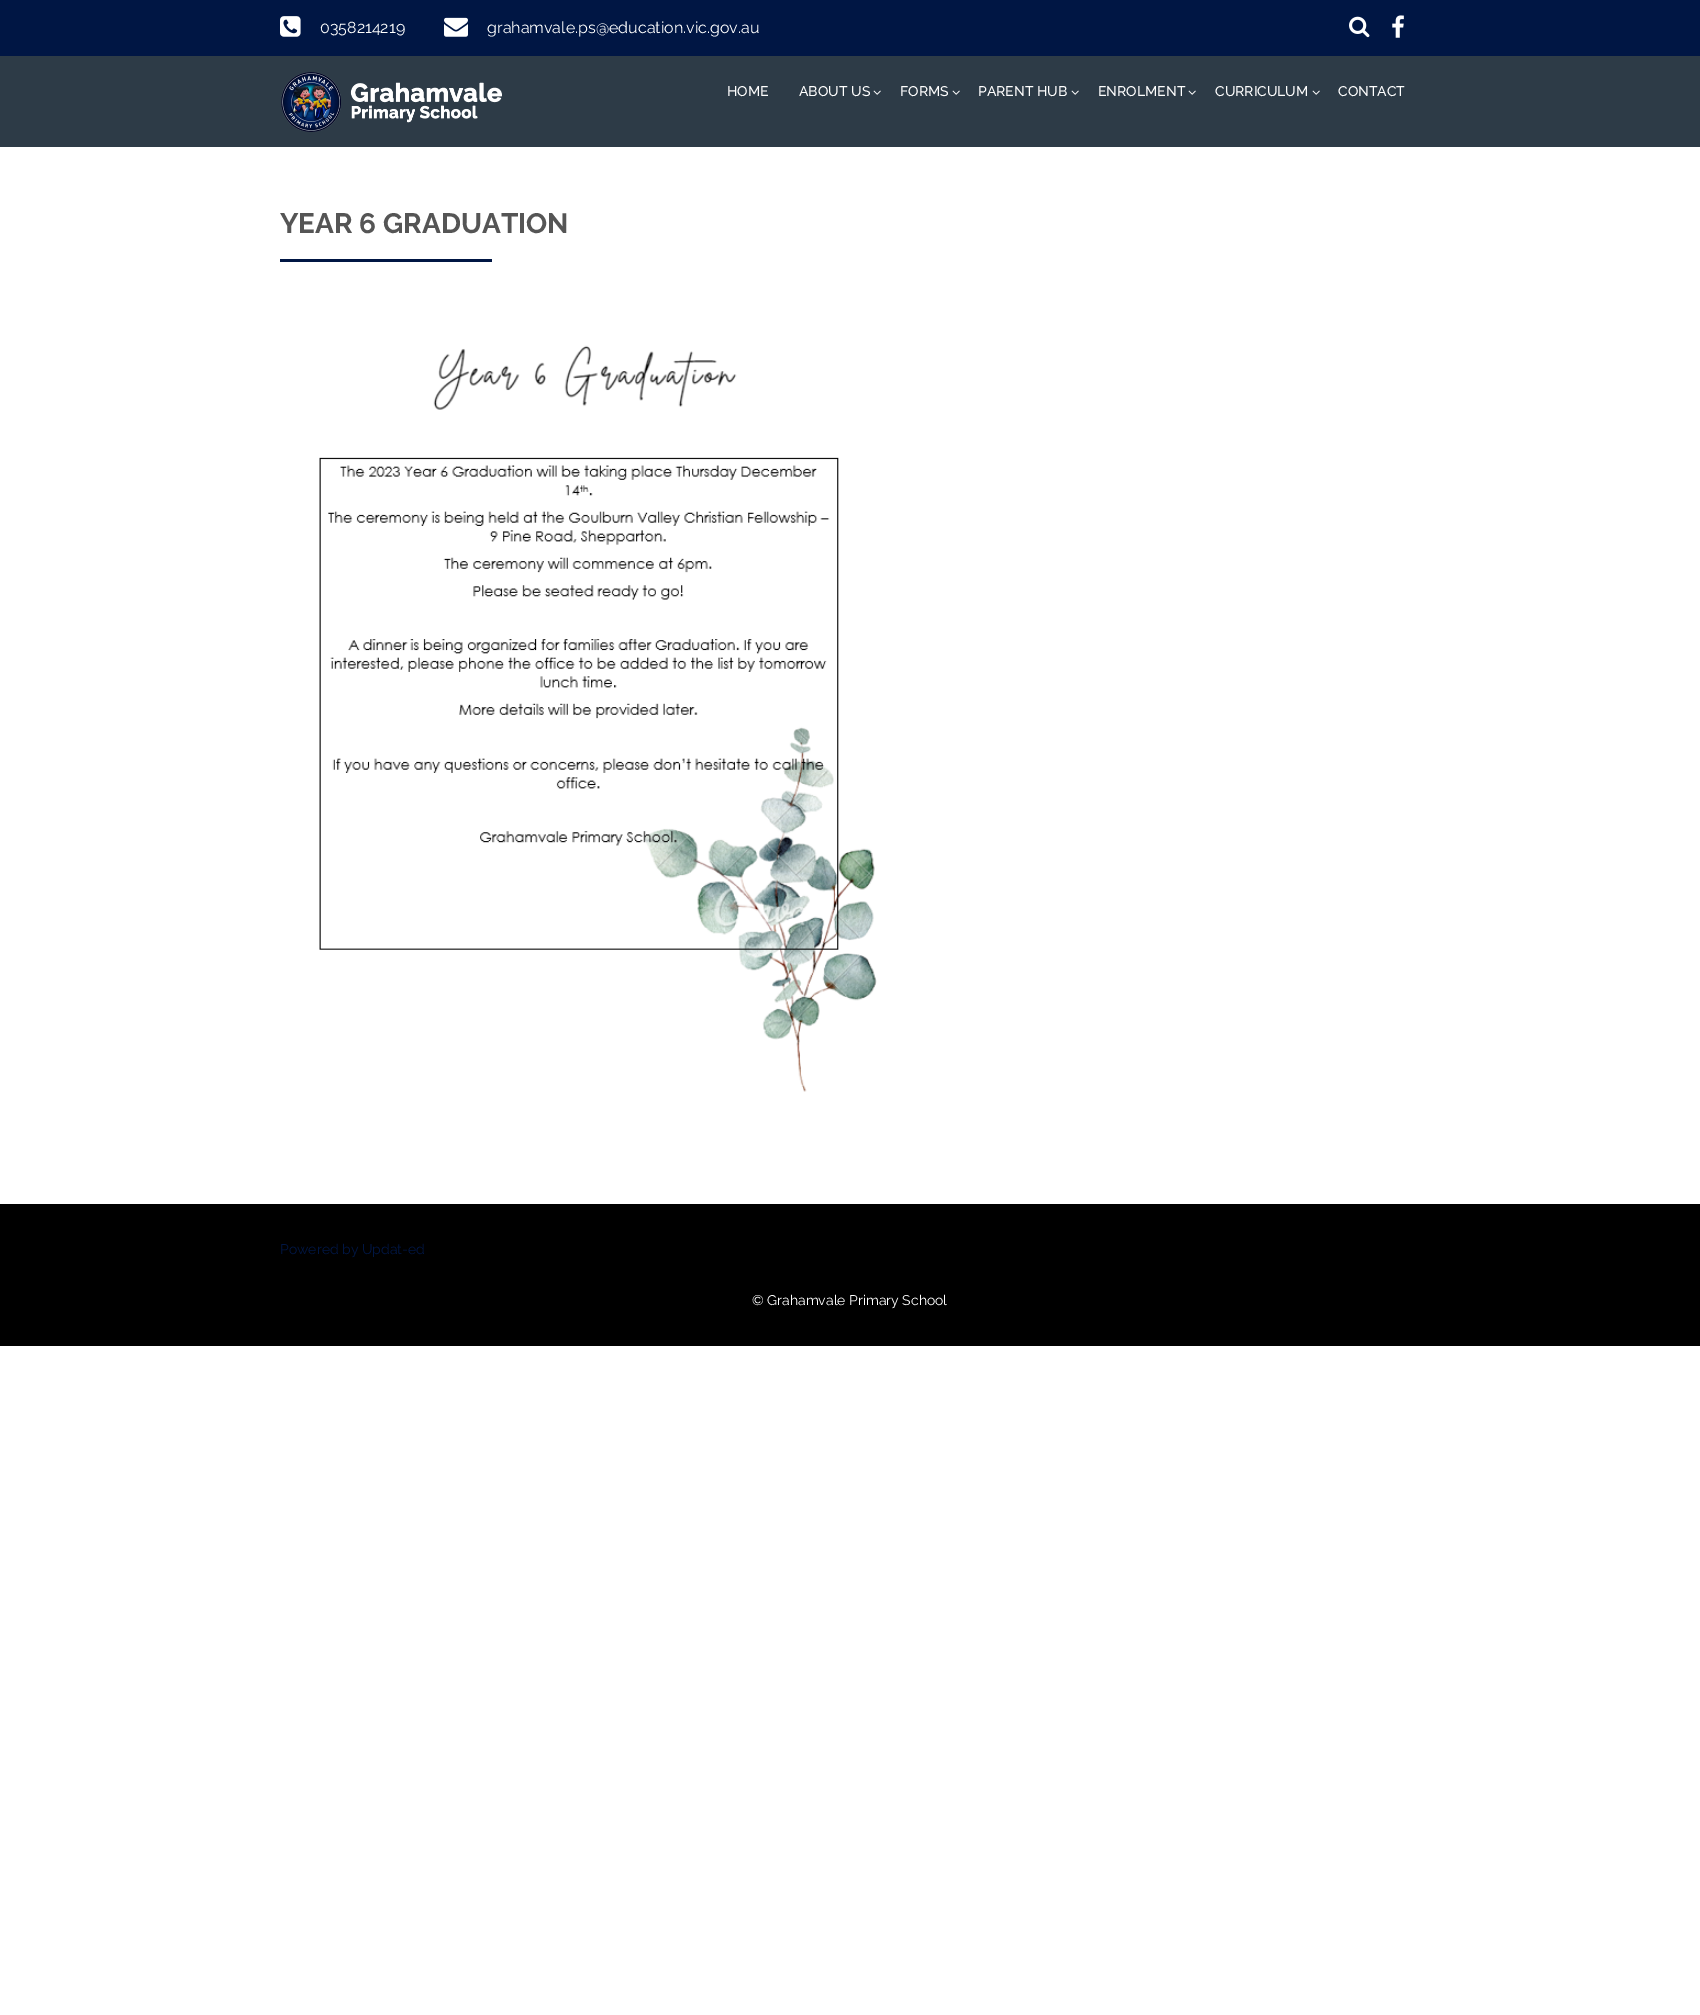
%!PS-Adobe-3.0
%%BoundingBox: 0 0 1700 2015
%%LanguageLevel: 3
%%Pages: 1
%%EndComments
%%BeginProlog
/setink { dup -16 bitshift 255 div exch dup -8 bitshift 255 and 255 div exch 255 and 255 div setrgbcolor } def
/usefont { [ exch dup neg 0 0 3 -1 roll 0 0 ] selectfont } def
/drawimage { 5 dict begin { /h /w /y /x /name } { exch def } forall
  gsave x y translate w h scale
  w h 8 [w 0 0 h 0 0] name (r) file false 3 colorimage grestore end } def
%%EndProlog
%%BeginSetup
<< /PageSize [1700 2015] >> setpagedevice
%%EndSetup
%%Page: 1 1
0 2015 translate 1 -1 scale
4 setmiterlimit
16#FFFFFF setink
0 0 1700 2015 rectfill
16#001644 setink
0 0 1700 56 rectfill
(img1.raw) 280 16 21 21 drawimage
/Raleway-Regular 16 usefont
16#FFFFFF setink
320 33 moveto (0358214219) show
(img2.raw) 444 17 24 20 drawimage
487 33 moveto (grahamvale.ps@education.vic.gov.au) show
(img3.raw) 1349 16 21 22 drawimage
(img4.raw) 1392 15 12 23 drawimage
16#2D3B47 setink
0 56 1700 91 rectfill
(img5.raw) 281 72 221 60 drawimage
/Raleway-Medium 14 usefont
16#FFFFFF setink
727 96 moveto (HOME) show
799 96 moveto (ABOUT US) show
(img6.raw) 873 90 8 5 drawimage
900 96 moveto (FORMS) show
(img6.raw) 952 90 8 5 drawimage
978 96 moveto (PARENT HUB) show
(img6.raw) 1071 90 8 5 drawimage
1098 96 moveto (ENROLMENT) show
(img6.raw) 1188 90 8 5 drawimage
1215 96 moveto (CURRICULUM) show
(img6.raw) 1312 90 8 5 drawimage
1338 96 moveto (CONTACT) show
/Raleway-Bold 28 usefont
16#555555 setink
280 233 moveto (YEAR 6 GRADUATION) show
16#001644 setink
280 259 212 3 rectfill
(img7.raw) 319 345 558 747 drawimage
16#000000 setink
0 1204 1700 142 rectfill
/Raleway-Regular 14 usefont
16#001644 setink
280 1254 moveto (Powered by Updat-ed) show
16#FFFFFF setink
752 1305 moveto (© Grahamvale Primary School) show
showpage
%%EOF
